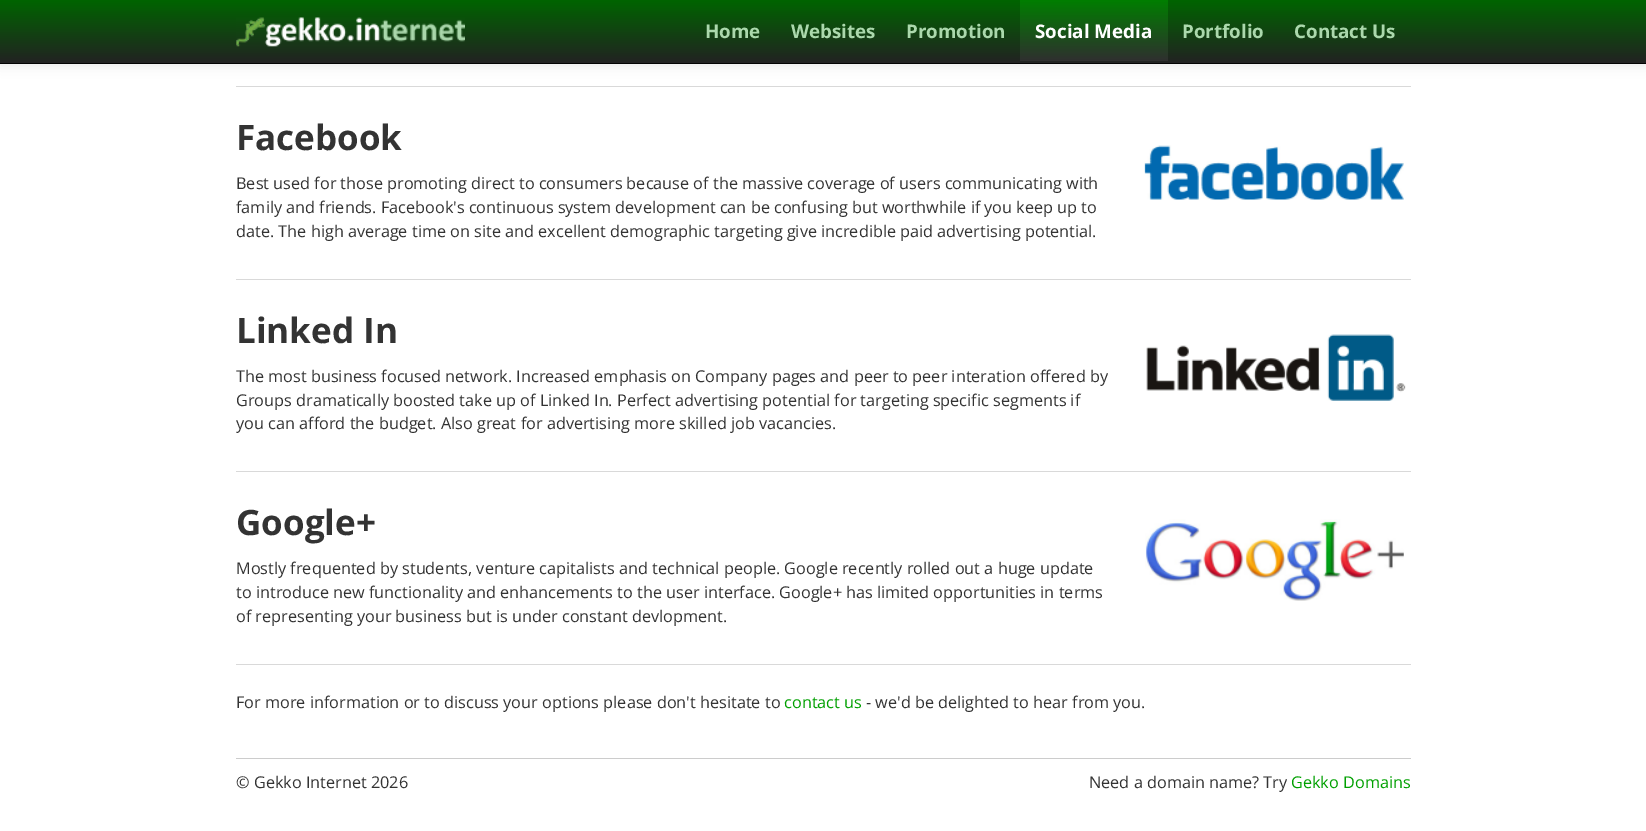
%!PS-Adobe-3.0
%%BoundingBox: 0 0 1646 831
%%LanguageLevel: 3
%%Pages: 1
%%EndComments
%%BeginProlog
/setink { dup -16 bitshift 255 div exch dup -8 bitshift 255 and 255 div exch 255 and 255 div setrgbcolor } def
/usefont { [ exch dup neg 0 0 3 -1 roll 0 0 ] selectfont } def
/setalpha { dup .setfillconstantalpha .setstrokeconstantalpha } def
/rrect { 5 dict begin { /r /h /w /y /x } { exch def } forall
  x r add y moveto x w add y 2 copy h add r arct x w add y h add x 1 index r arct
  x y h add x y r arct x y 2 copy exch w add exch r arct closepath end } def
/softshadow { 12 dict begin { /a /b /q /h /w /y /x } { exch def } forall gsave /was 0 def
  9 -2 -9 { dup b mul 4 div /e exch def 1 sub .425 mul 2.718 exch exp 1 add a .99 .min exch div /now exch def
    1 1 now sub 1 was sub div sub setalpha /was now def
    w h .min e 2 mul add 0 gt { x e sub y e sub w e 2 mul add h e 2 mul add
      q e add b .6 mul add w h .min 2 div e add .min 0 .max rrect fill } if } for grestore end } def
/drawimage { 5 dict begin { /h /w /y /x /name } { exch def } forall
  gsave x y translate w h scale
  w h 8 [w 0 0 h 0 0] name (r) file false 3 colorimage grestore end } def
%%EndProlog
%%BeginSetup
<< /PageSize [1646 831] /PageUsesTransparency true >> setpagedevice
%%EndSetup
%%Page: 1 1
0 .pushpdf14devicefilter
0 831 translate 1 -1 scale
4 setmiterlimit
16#FFFFFF setink
0 0 1646 831 rectfill
16#000000 setink
0 1 1646 64 0 6 0.1 softshadow
gsave 0 0 moveto 1646 0 lineto 1646 63 lineto 0 63 lineto closepath clip newpath
<< /ShadingType 2 /ColorSpace /DeviceRGB /Coords [823 0 823 63] /Extend [true true] /Function << /FunctionType 2 /Domain [0 1] /C0 [0 0.392 0] /C1 [0.133 0.133 0.133] /N 1 >> >> shfill grestore
16#030303 setink
0 63 1646 1 rectfill
(img1.raw) 236 17 229 30 drawimage
/OpenSans-Bold 18.75 usefont
16#ABD8AC setink
[
    [(Home) 705 38]
    [(Websites) 791 38]
    [(Promotion) 906 38]
] { aload pop moveto show } forall
gsave 1020 0 moveto 1168 0 lineto 1168 61 lineto 1020 61 lineto closepath clip newpath
<< /ShadingType 2 /ColorSpace /DeviceRGB /Coords [1094 0 1094 61] /Extend [true true] /Function << /FunctionType 2 /Domain [0 1] /C0 [0 0.494 0] /C1 [0.184 0.184 0.184] /N 1 >> >> shfill grestore
16#FFFFFF setink
1035 38 moveto (Social Media) show
16#ABD8AC setink
1182 38 moveto (Portfolio) show
1294 38 moveto (Contact Us) show
16#D9D9D9 setink
236 86 1175 1 rectfill
/OpenSans-Bold 35 usefont
16#333333 setink
236 150 moveto (Facebook) show
/OpenSans-Regular 16.25 usefont
[
    [(Best used for those promoting direct to consumers because of the massive coverage of users communicating with) 236 189]
    [(family and friends. Facebook's continuous system development can be confusing but worthwhile if you keep up to) 236 213]
    [(date. The high average time on site and excellent demographic targeting give incredible paid advertising potential.) 236 237]
] { aload pop moveto show } forall
(img2.raw) 1144 145 260 55 drawimage
16#D9D9D9 setink
236 279 1175 1 rectfill
/OpenSans-Bold 35 usefont
16#333333 setink
236 343 moveto (Linked In) show
/OpenSans-Regular 16.25 usefont
[
    [(The most business focused network. Increased emphasis on Company pages and peer to peer interation offered by) 236 382]
    [(Groups dramatically boosted take up of Linked In. Perfect advertising potential for targeting specific segments if) 236 406]
    [(you can afford the budget. Also great for advertising more skilled job vacancies.) 236 429]
] { aload pop moveto show } forall
(img3.raw) 1146 334 260 67 drawimage
16#D9D9D9 setink
236 471 1175 1 rectfill
/OpenSans-Bold 35 usefont
16#333333 setink
236 535 moveto (Google+) show
/OpenSans-Regular 16.25 usefont
[
    [(Mostly frequented by students, venture capitalists and technical people. Google recently rolled out a huge update) 236 574]
    [(to introduce new functionality and enhancements to the user interface. Google+ has limited opportunities in terms) 236 598]
    [(of representing your business but is under constant devlopment.) 236 622]
] { aload pop moveto show } forall
(img4.raw) 1145 519 259 82 drawimage
16#D9D9D9 setink
236 664 1175 1 rectfill
16#333333 setink
236 708 moveto (For more information or to discuss your options please don't hesitate to) show
16#00A000 setink
784 708 moveto (contact us) show
16#333333 setink
866 708 moveto (- we'd be delighted to hear from you.) show
16#CCCCCC setink
236 758 1175 1 rectfill
16#333333 setink
236 788 moveto (© Gekko Internet 2026) show
1089 788 moveto (Need a domain name? Try) show
16#00A000 setink
1291 788 moveto (Gekko Domains) show
.poppdf14devicefilter showpage
%%EOF
